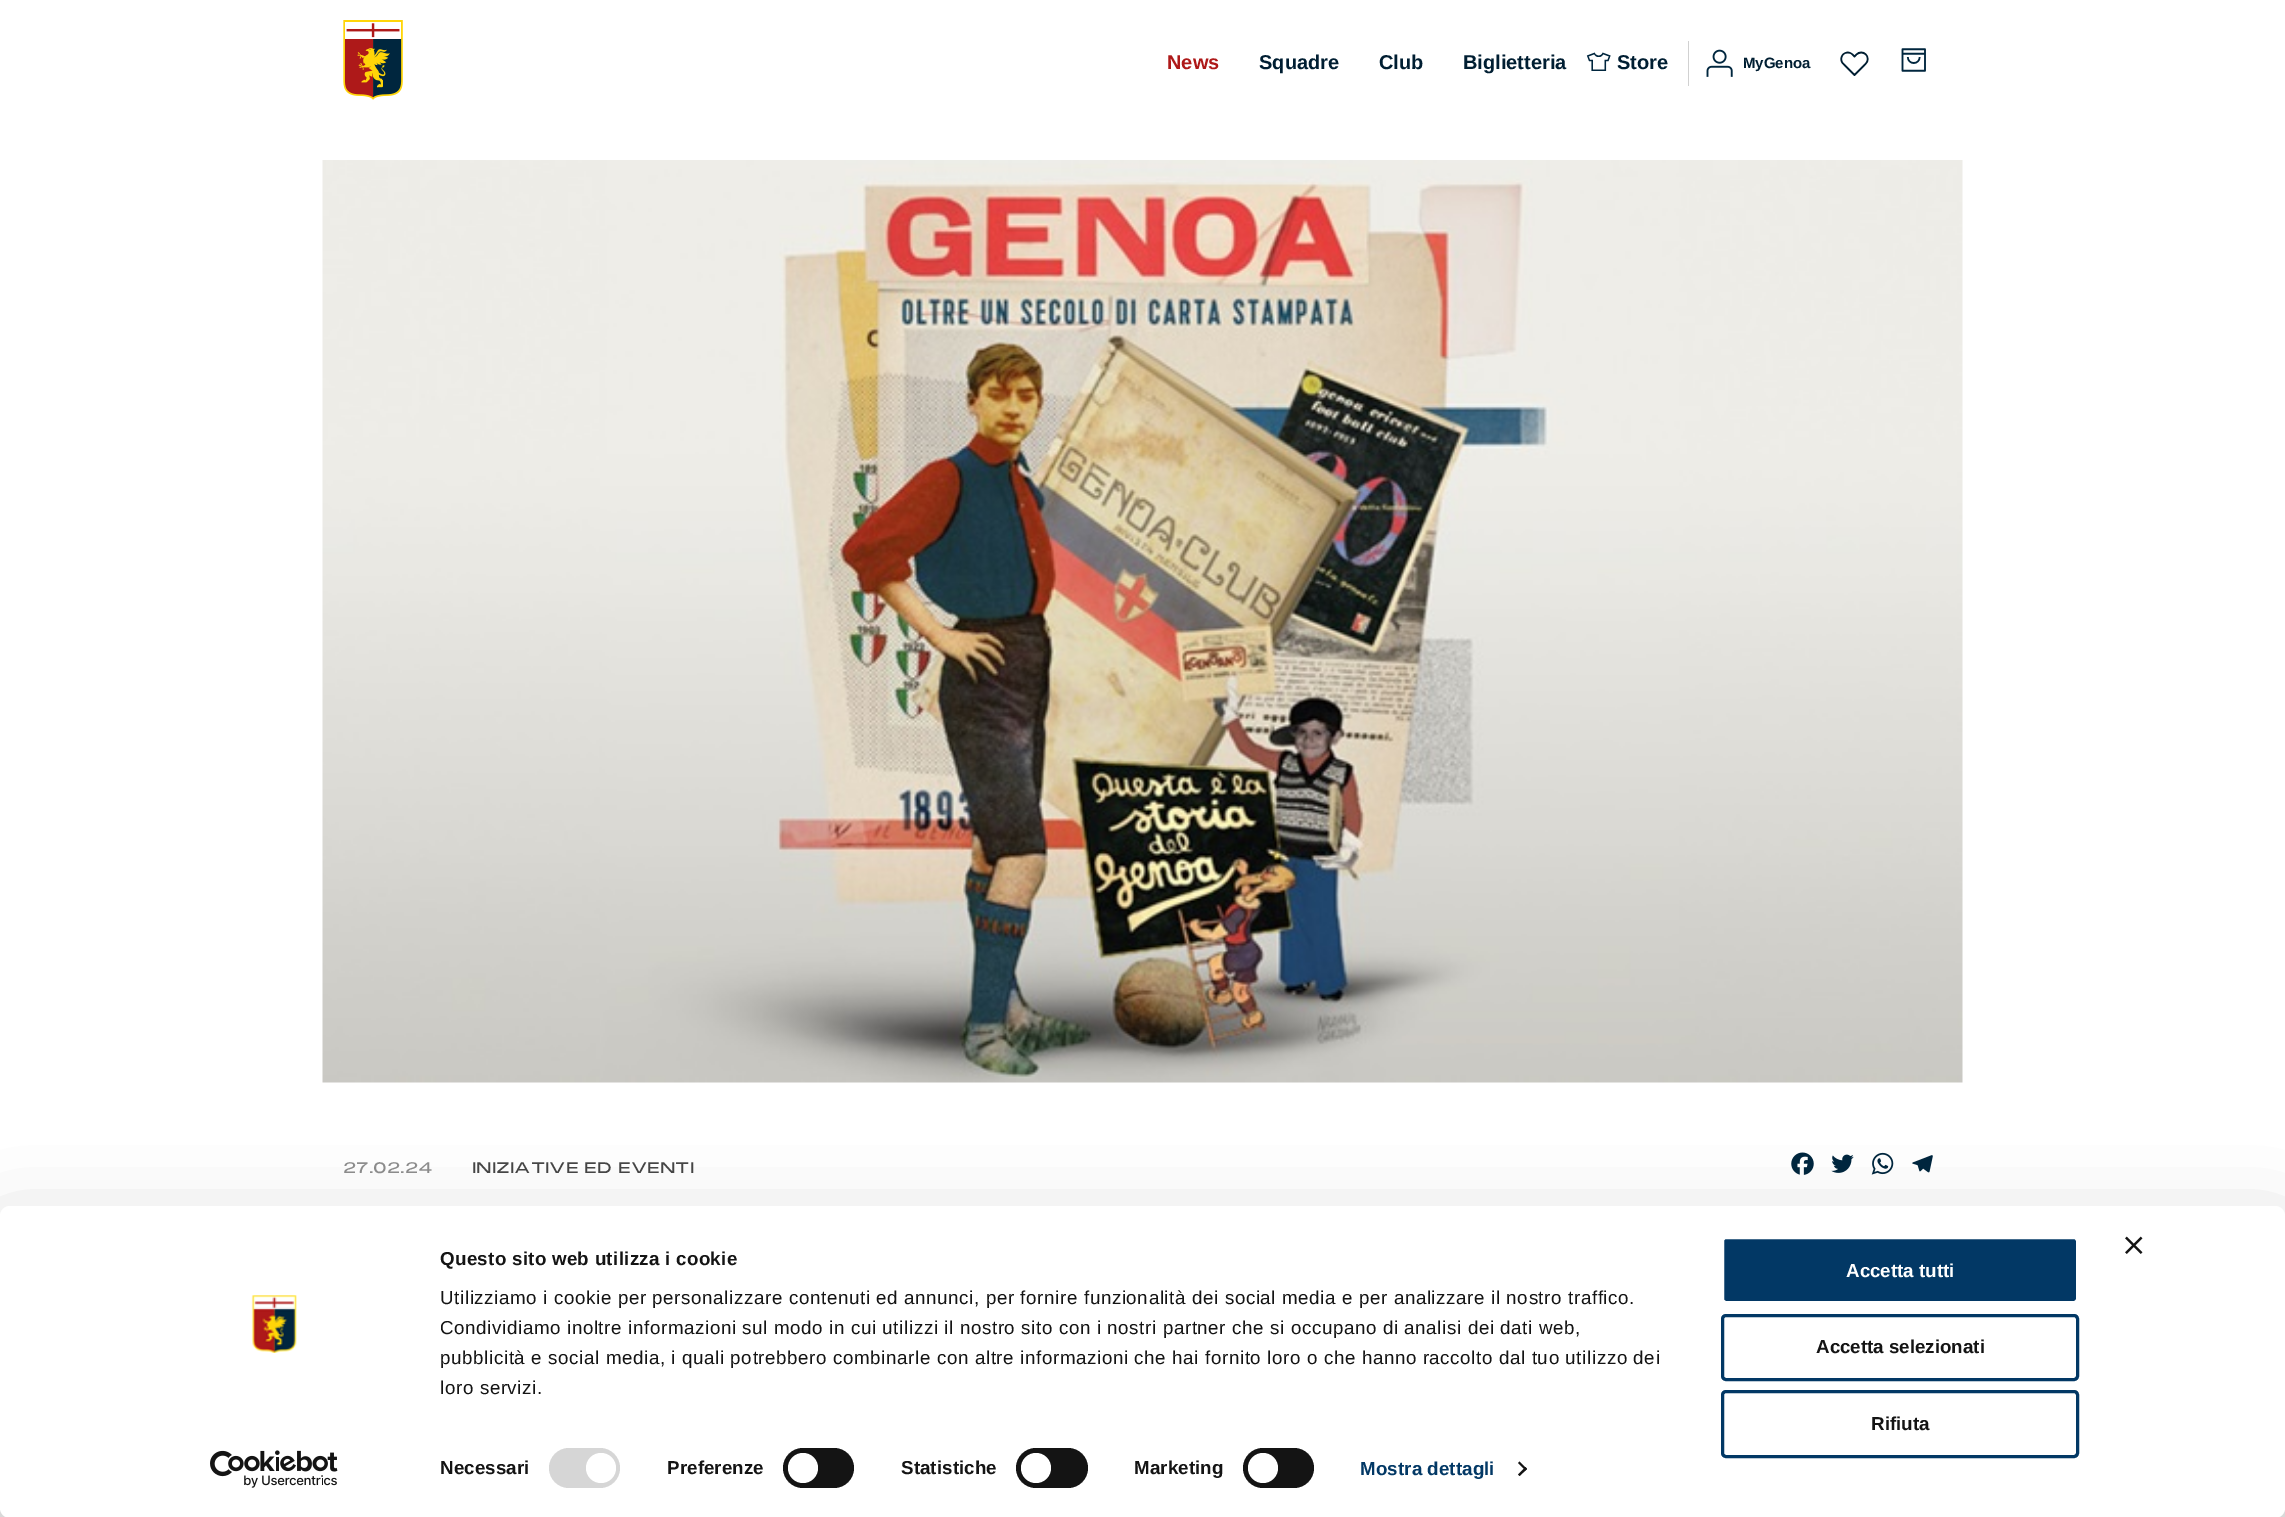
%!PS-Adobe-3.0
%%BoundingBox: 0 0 2285 1517
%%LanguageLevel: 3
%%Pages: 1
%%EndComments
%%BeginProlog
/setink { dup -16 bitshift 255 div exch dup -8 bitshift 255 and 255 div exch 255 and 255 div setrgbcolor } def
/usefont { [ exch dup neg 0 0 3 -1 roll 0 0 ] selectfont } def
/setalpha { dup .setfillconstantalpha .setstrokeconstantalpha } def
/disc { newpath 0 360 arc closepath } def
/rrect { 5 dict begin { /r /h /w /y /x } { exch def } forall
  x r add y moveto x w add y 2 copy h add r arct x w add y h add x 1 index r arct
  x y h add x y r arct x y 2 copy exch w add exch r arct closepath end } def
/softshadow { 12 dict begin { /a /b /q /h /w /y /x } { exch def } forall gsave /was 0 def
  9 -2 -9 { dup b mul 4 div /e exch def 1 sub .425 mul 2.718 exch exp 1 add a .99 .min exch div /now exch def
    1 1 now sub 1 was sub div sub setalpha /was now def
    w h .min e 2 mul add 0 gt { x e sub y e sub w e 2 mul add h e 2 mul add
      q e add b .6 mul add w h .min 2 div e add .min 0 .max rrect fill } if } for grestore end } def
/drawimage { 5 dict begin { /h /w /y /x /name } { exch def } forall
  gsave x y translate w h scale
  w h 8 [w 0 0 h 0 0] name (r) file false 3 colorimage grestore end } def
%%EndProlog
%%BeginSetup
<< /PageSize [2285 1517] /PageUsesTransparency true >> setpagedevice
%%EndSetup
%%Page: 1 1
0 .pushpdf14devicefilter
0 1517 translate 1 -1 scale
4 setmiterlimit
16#FFFFFF setink
0 0 2285 1517 rectfill
(img1.raw) 343 20 60 80 drawimage
/LiberationSans-Bold 20 usefont
16#AE1919 setink
1167 69 moveto (News) show
16#001E32 setink
[
    [(Squadre) 1259 69]
    [(Club) 1379 69]
    [(Biglietteria) 1463 69]
] { aload pop moveto show } forall
16#D1D1D1 setink
1688 41 1 45 rectfill
(img2.raw) 1586 52 25 19 drawimage
16#001E32 setink
1617 69 moveto (Store) show
(img3.raw) 1706 49 27 28 drawimage
/LiberationSans-Bold 15 usefont
1743 68 moveto (MyGenoa) show
(img4.raw) 1840 51 29 25 drawimage
(img5.raw) 1901 48 25 24 drawimage
(img6.raw) 322 160 1641 923 drawimage
/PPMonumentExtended-Regular 15 usefont
16#8E8E8E setink
343 1173 moveto (27.02.24) show
16#474747 setink
472 1173 moveto (INIZIATIVE ED EVENTI) show
(img7.raw) 1791 1152 23 23 drawimage
(img8.raw) 1831 1154 23 19 drawimage
(img9.raw) 1871 1152 23 23 drawimage
(img10.raw) 1912 1155 21 18 drawimage
16#000000 setink
0 1244 2285 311 10 44 0.3 softshadow
16#FFFFFF setink
0 1206 2285 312 10 rrect fill
(img11.raw) 2125 1236 18 18 drawimage
(img12.raw) 251 1295 46 58 drawimage
(img13.raw) 210 1450 128 38 drawimage
/LiberationSans-Bold 18.75 usefont
16#141414 setink
440 1265 moveto 0.3 0 (Questo sito web utilizza i cookie) ashow
/LiberationSans-Regular 18.75 usefont
440 1304 moveto 0.62 0 (Utilizziamo i cookie per personalizzare contenuti ed annunci, per fornire funzionalità dei social media e per analizzare il nostro traffico.) ashow
440 1334 moveto 0.62 0 (Condividiamo inoltre informazioni sul modo in cui utilizzi il nostro sito con i nostri partner che si occupano di analisi dei dati web,) ashow
440 1364 moveto 0.62 0 (pubblicità e social media, i quali potrebbero combinarle con altre informazioni che hai fornito loro o che hanno raccolto dal tuo utilizzo dei) ashow
440 1394 moveto 0.62 0 (loro servizi.) ashow
/LiberationSans-Bold 18.75 usefont
440 1474 moveto 0.1 0 (Necessari) ashow
16#D6D6D6 setink
549 1448 71 40 20 rrect fill
16#FFFFFF setink
601 1468 15 disc fill
16#141414 setink
667 1474 moveto 0.1 0 (Preferenze) ashow
783 1448 71 40 20 rrect fill
16#FFFFFF setink
803 1468 15 disc fill
16#141414 setink
901 1474 moveto 0.1 0 (Statistiche) ashow
1016 1448 72 40 20 rrect fill
16#FFFFFF setink
1036 1468 15 disc fill
16#141414 setink
1134 1474 moveto 0.1 0 (Marketing) ashow
1243 1448 71 40 20 rrect fill
16#FFFFFF setink
1263 1468 15 disc fill
16#023865 setink
1360 1475 moveto 0.1 0 (Mostra dettagli) ashow
16#141414 setink
1519.5 1461.5 moveto 1527 1469 lineto 1525.5 1470.5 lineto 1518 1463 lineto closepath fill
1525.5 1467 moveto 1527 1469 lineto 1519.5 1476 lineto 1518 1474.5 lineto closepath fill
16#023865 setink
1722.5 1237.5 355 65 3.5 rrect gsave fill grestore
16#FFFFFF setink
3 setlinewidth
stroke
1846 1277 moveto (Accetta tutti) show
16#023865 setink
1722.5 1315.5 355 64 3.5 rrect stroke
16#141414 setink
1816 1353 moveto (Accetta selezionati) show
16#023865 setink
1722.5 1391.5 355 65 3.5 rrect stroke
16#141414 setink
1871 1430 moveto (Rifiuta) show
.poppdf14devicefilter showpage
%%EOF
